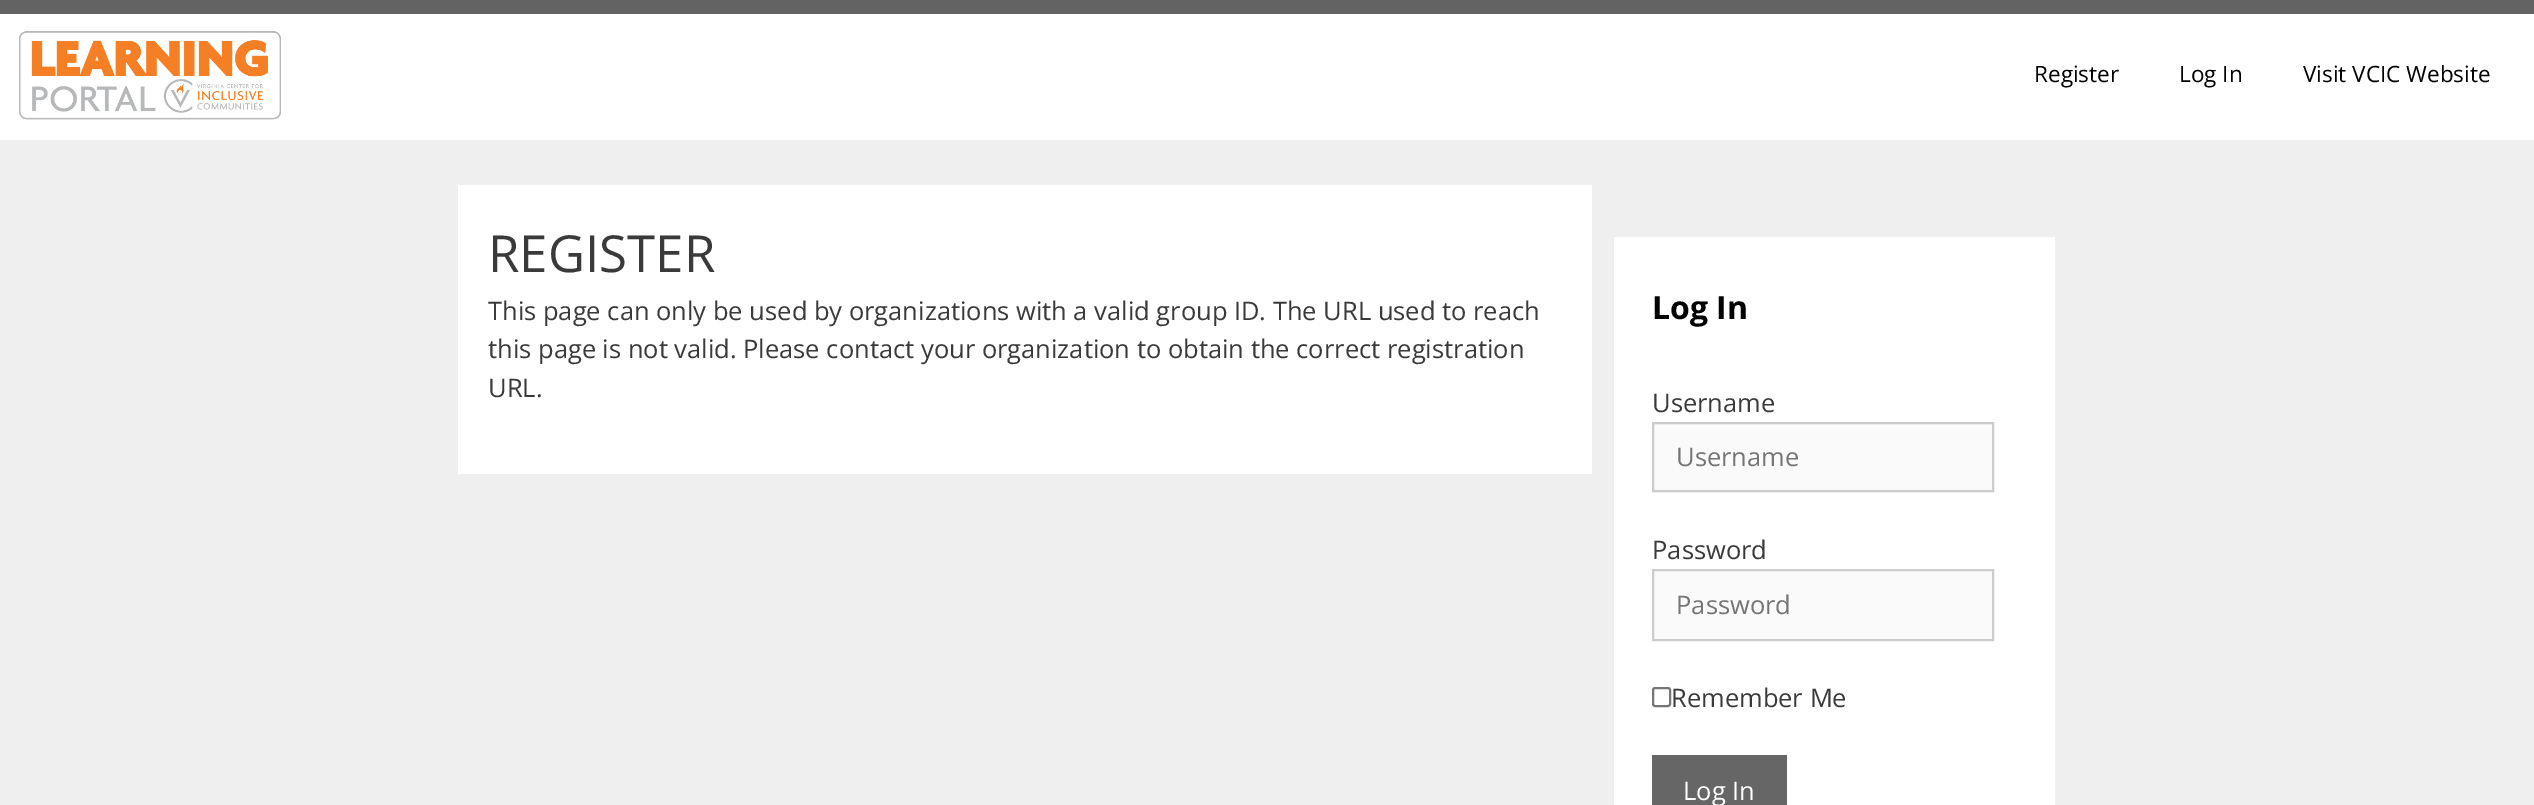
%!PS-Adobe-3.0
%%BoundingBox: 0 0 2534 805
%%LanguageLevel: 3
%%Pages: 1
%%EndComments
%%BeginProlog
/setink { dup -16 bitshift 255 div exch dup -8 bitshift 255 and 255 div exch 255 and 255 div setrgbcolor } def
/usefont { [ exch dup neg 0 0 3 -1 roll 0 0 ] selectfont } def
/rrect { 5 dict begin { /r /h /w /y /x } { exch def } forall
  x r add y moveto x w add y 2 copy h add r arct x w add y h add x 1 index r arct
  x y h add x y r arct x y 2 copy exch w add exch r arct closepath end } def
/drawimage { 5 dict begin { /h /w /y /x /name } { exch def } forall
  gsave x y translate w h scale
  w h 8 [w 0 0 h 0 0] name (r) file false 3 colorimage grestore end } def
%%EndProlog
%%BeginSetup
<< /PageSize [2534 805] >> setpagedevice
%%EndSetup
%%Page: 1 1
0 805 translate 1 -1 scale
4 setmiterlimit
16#EFEFEF setink
0 0 2534 805 rectfill
16#636363 setink
0 0 2534 14 rectfill
16#FFFFFF setink
0 14 2534 126 rectfill
(img1.raw) 19 30 262 90 drawimage
/OpenSans-Regular 22.5 usefont
16#000000 setink
[
    [(Register) 2034 82]
    [(Log In) 2179 82]
    [(Visit VCIC Website) 2303 82]
] { aload pop moveto show } forall
16#FFFFFF setink
458 185 1134 289 rectfill
/OpenSans-Regular 51 usefont
16#3A3A3A setink
488 272 moveto (REGISTER) show
/OpenSans-Regular 25.5 usefont
[
    [(This page can only be used by organizations with a valid group ID. The URL used to reach) 488 320]
    [(this page is not valid. Please contact your organization to obtain the correct registration) 488 358]
    [(URL.) 488 397]
] { aload pop moveto show } forall
16#FFFFFF setink
1614 237 441 568 rectfill
/OpenSans-Bold 32 usefont
16#000000 setink
1652 319 moveto (Log In) show
/OpenSans-Regular 25.5 usefont
16#3A3A3A setink
1652 412 moveto (Username) show
16#FAFAFA setink
1653 423 moveto 1993 423 lineto 1993 491 lineto 1653 491 lineto closepath gsave fill grestore
16#CCCCCC setink
2 setlinewidth
stroke
16#757575 setink
1676 466 moveto (Username) show
16#3A3A3A setink
1652 559 moveto (Password) show
16#FAFAFA setink
1653 570 moveto 1993 570 lineto 1993 640 lineto 1653 640 lineto closepath gsave fill grestore
16#CCCCCC setink
stroke
16#757575 setink
1676 614 moveto (Password) show
16#767676 setink
1653 688 17 18 2 rrect stroke
16#3A3A3A setink
1671 707 moveto (Remember Me) show
16#666666 setink
1652 755 135 50 rectfill
16#FFFFFF setink
1683 800 moveto (Log In) show
showpage
%%EOF
